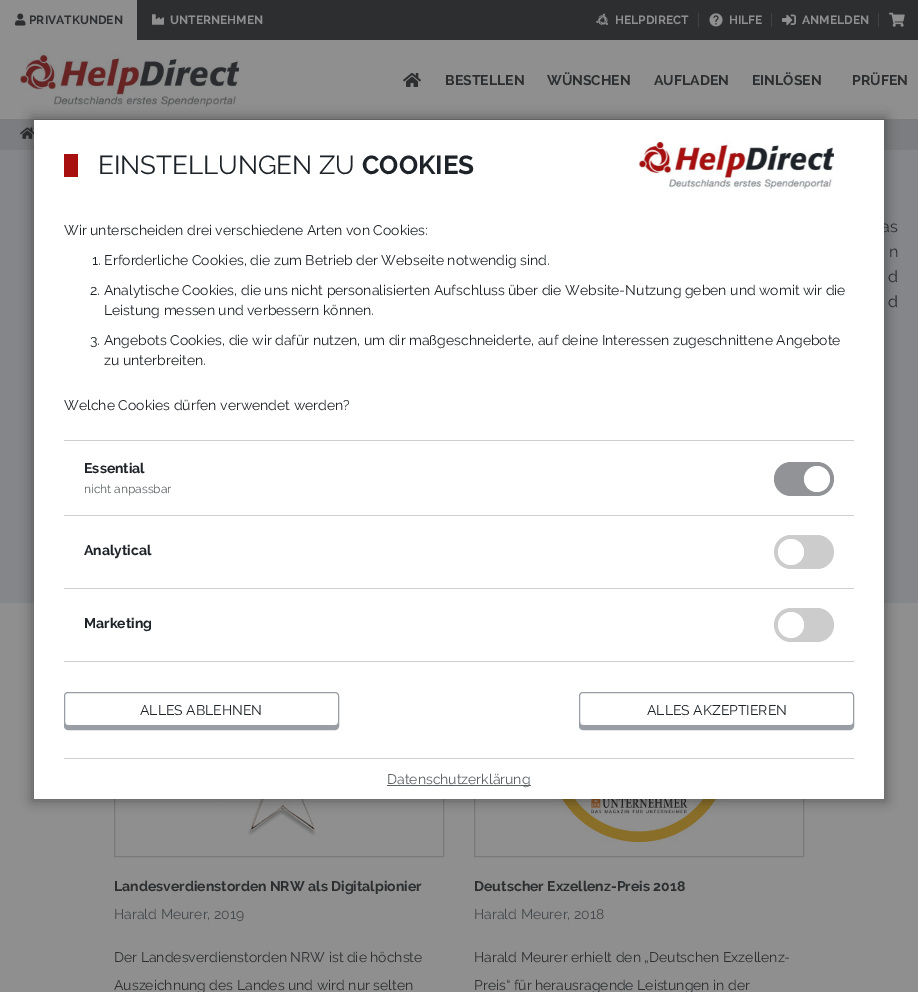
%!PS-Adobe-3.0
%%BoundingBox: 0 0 918 992
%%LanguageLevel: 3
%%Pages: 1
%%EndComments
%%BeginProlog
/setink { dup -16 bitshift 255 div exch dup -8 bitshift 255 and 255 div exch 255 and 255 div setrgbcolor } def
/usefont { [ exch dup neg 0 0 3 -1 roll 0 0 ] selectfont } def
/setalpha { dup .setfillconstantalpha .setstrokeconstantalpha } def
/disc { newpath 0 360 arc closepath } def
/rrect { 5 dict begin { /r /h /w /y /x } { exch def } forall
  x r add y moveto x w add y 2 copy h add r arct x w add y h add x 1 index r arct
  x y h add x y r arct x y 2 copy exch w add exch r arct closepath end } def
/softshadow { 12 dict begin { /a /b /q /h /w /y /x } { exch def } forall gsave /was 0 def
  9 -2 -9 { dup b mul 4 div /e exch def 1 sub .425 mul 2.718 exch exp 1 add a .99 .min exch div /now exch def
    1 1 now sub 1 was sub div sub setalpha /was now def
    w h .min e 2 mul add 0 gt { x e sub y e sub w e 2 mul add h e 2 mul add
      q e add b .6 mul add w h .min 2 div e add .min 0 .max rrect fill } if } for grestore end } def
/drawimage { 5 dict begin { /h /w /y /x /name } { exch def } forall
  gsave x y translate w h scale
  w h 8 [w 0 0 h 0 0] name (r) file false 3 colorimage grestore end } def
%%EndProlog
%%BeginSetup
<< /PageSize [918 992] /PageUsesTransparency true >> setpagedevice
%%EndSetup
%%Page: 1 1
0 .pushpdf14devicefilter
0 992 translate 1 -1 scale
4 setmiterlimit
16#8F8F8F setink
0 0 918 992 rectfill
16#2C2E30 setink
137 0 781 40 rectfill
(img1.raw) 15 13 11 13 drawimage
/Raleway-Bold 12 usefont
29 24 moveto (PRIVATKUNDEN) show
(img2.raw) 152 14 12 11 drawimage
16#8F8F8F setink
170 24 moveto (UNTERNEHMEN) show
(img3.raw) 596 13 12 13 drawimage
615 24 moveto (HELPDIRECT) show
16#404143 setink
698 13 1 14 rectfill
(img4.raw) 709 13 14 14 drawimage
16#8F8F8F setink
729 24 moveto (HILFE) show
16#404143 setink
771 13 1 14 rectfill
(img5.raw) 782 14 14 12 drawimage
16#8F8F8F setink
802 24 moveto (ANMELDEN) show
16#404143 setink
878 13 1 14 rectfill
(img6.raw) 889 12 16 15 drawimage
(img7.raw) 20 53 219 54 drawimage
(img8.raw) 403 73 18 14 drawimage
/Raleway-Bold 14 usefont
16#2C2E30 setink
[
    [(BESTELLEN) 445 85]
    [(WÜNSCHEN) 547 85]
    [(AUFLADEN) 654 85]
    [(EINLÖSEN) 752 85]
    [(PRÜFEN) 852 85]
] { aload pop moveto show } forall
16#7B7D80 setink
0 119 918 31 rectfill
(img9.raw) 20 127 14 12 drawimage
16#858689 setink
0 150 918 453 rectfill
/Raleway-Regular 16 usefont
16#2C2E30 setink
881 232 moveto 1 0 32 (as) widthshow
889 257 moveto 4 0 32 (n) widthshow
888 282 moveto 2 0 32 (d) widthshow
888 307 moveto 1 0 32 (d) widthshow
16#79797B setink
114.5 648.5 329 208 rectstroke
(img10.raw) 198 799 164 37 drawimage
/Raleway-Bold 14 usefont
16#2C2E30 setink
114 891 moveto (Landesverdienstorden NRW als Digitalpionier) show
/Raleway-Regular 14 usefont
16#45484A setink
114 919 moveto (Harald Meurer, 2019) show
16#2C2E30 setink
114 962 moveto (Der Landesverdienstorden NRW ist die höchste) show
114 990 moveto (Auszeichnung des Landes und wird nur selten) show
16#79797B setink
474.5 648.5 329 208 rectstroke
(img11.raw) 549 799 180 43 drawimage
/Raleway-Bold 14 usefont
16#2C2E30 setink
474 891 moveto (Deutscher Exzellenz-Preis 2018) show
/Raleway-Regular 14 usefont
16#45484A setink
474 919 moveto (Harald Meurer, 2018) show
16#2C2E30 setink
474 962 moveto (Harald Meurer erhielt den „Deutschen Exzellenz-) show
474 990 moveto (Preis“ für herausragende Leistungen in der) show
16#000000 setink
32 118 854 683 0 6 0.35 softshadow
16#FFFFFF setink
34 120 850 679 rectfill
(img12.raw) 638 140 196 49 drawimage
16#A81010 setink
64 154 14 23 rectfill
/Raleway-Regular 26 usefont
16#1E2329 setink
98 174 moveto (EINSTELLUNGEN ZU) show
/Raleway-Bold 26 usefont
362 174 moveto (COOKIES) show
/Raleway-Regular 14 usefont
[
    [(Wir unterscheiden drei verschiedene Arten von Cookies:) 64 235]
    [(1. Erforderliche Cookies, die zum Betrieb der Webseite notwendig sind.) 92 265]
    [(2. Analytische Cookies, die uns nicht personalisierten Aufschluss über die Website-Nutzung geben und womit wir die) 90 295]
    [(Leistung messen und verbessern können.) 104 315]
    [(3. Angebots Cookies, die wir dafür nutzen, um dir maßgeschneiderte, auf deine Interessen zugeschnittene Angebote) 90 345]
    [(zu unterbreiten.) 104 365]
    [(Welche Cookies dürfen verwendet werden?) 64 410]
] { aload pop moveto show } forall
16#CECFD2 setink
64 440 790 1 rectfill
64 515 790 1 rectfill
/Raleway-Bold 14 usefont
16#1E2329 setink
84 473 moveto (Essential) show
/Raleway-Regular 12 usefont
16#5B6165 setink
84 493 moveto (nicht anpassbar) show
16#919396 setink
774 462 60 34 17 rrect fill
16#FFFFFF setink
817 479 13 disc fill
16#CECFD2 setink
64 588 790 1 rectfill
/Raleway-Bold 14 usefont
16#1E2329 setink
84 555 moveto (Analytical) show
16#CCCCCC setink
774 535 60 34 17 rrect fill
16#FFFFFF setink
791 552 13 disc fill
16#CECFD2 setink
64 661 790 1 rectfill
16#1E2329 setink
84 628 moveto (Marketing) show
16#CCCCCC setink
774 608 60 34 17 rrect fill
16#FFFFFF setink
791 625 13 disc fill
16#999DA4 setink
65 722 moveto 65 724 64 729 68 729 curveto 336 729 lineto 339 728 338 724 338 722 curveto 338 724 337 725 335 725 curveto 68 725 lineto 66 725 65 724 65 722 curveto closepath fill
64.5 692.5 274 37 3.5 rrect stroke
/Raleway-Regular 14 usefont
16#1E2329 setink
140 715 moveto (ALLES ABLEHNEN) show
16#999DA4 setink
580 722 moveto 580 724 579 728 582 729 curveto 850 729 lineto 854 729 853 724 853 722 curveto 853 724 852 725 850 725 curveto 583 725 lineto 581 725 580 724 580 722 curveto closepath fill
579.5 692.5 274 37 3.5 rrect stroke
16#1E2329 setink
647 715 moveto (ALLES AKZEPTIEREN) show
16#CECFD2 setink
64 758 790 1 rectfill
16#5B6165 setink
387 785 144 1 rectfill
387 784 moveto (Datenschutzerklärung) show
.poppdf14devicefilter showpage
%%EOF
